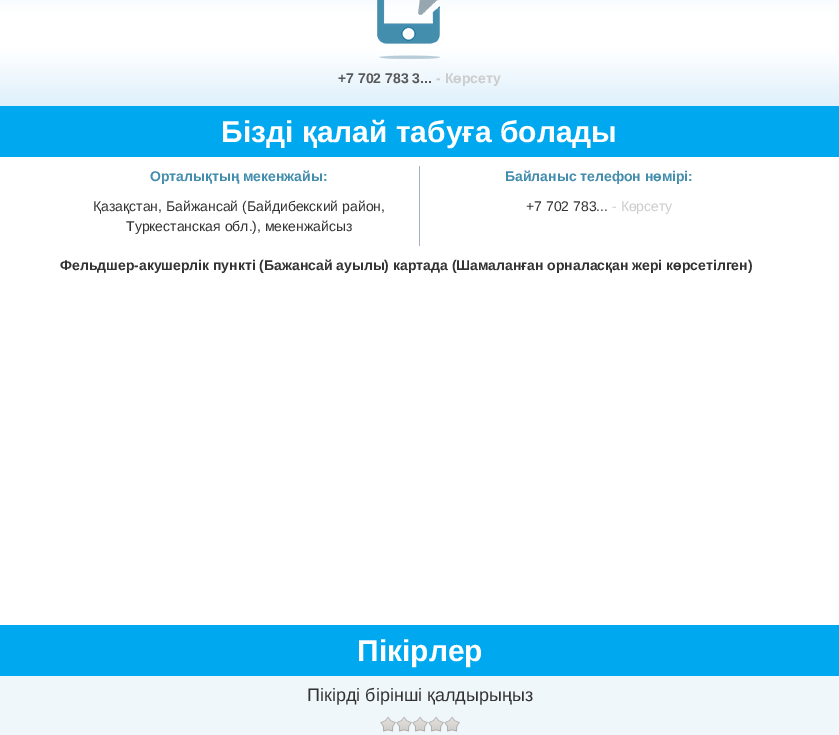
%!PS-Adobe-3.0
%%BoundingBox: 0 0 839 735
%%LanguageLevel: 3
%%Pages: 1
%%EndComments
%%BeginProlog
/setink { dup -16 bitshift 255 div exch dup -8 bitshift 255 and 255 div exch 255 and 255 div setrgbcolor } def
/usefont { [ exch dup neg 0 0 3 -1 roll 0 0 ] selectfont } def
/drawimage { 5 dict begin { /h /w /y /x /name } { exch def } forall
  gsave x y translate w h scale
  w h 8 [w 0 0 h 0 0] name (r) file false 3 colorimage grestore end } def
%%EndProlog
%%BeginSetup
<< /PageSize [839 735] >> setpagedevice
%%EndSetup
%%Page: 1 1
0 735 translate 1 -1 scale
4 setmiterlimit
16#FFFFFF setink
0 0 839 735 rectfill
gsave 0 0 moveto 839 0 lineto 839 106 lineto 0 106 lineto closepath clip newpath
<< /ShadingType 2 /ColorSpace /DeviceRGB /Coords [420 -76 420 106] /Extend [true true] /Function << /FunctionType 3 /Domain [0 1] /Functions [<< /FunctionType 2 /Domain [0 1] /C0 [0.855 0.933 0.98] /C1 [1 1 1] /N 1 >> << /FunctionType 2 /Domain [0 1] /C0 [1 1 1] /C1 [1 1 1] /N 1 >> << /FunctionType 2 /Domain [0 1] /C0 [1 1 1] /C1 [0.871 0.941 0.984] /N 1 >>] /Bounds [0.5 0.69] /Encode [0 1 0 1 0 1] >> >> shfill grestore
(img1.raw) 377 0 64 59 drawimage
/LiberationSans-Bold 14 usefont
16#58595B setink
338 83 moveto (+7 702 783 3...) show
16#CCCCCC setink
436 83 moveto (- Көрсету) show
16#00A8F0 setink
0 106 839 51 rectfill
/LiberationSans-Bold 30 usefont
16#FFFFFF setink
221 142 moveto (Бізді қалай табуға болады) show
16#A5B0C5 setink
419 166 1 80 rectfill
/LiberationSans-Bold 14 usefont
16#438DAD setink
150 181 moveto (Орталықтың мекенжайы:) show
/LiberationSans-Regular 14 usefont
16#333333 setink
93 211 moveto (Қазақстан, Байжансай \(Байдибекский район,) show
126 231 moveto (Туркестанская обл.\), мекенжайсыз) show
/LiberationSans-Bold 14 usefont
16#438DAD setink
505 181 moveto (Байланыс телефон нөмірі:) show
/LiberationSans-Regular 14 usefont
16#333333 setink
526 211 moveto (+7 702 783...) show
16#CCCCCC setink
612 211 moveto (- Көрсету) show
/LiberationSans-Bold 14 usefont
16#333333 setink
60 270 moveto (Фельдшер-акушерлік пункті \(Бажансай ауылы\) картада \(Шамаланған орналасқан жері көрсетілген\)) show
16#F0F7FB setink
0 676 839 59 rectfill
16#00A8F0 setink
0 625 839 51 rectfill
/LiberationSans-Bold 30 usefont
16#FFFFFF setink
357 661 moveto (Пікірлер) show
/LiberationSans-Regular 18 usefont
16#333333 setink
307 701 moveto (Пікірді бірінші қалдырыңыз) show
(img2.raw) 380 716 16 16 drawimage
(img2.raw) 396 716 16 16 drawimage
(img2.raw) 412 716 16 16 drawimage
(img2.raw) 428 716 16 16 drawimage
(img2.raw) 444 716 16 16 drawimage
showpage
%%EOF
